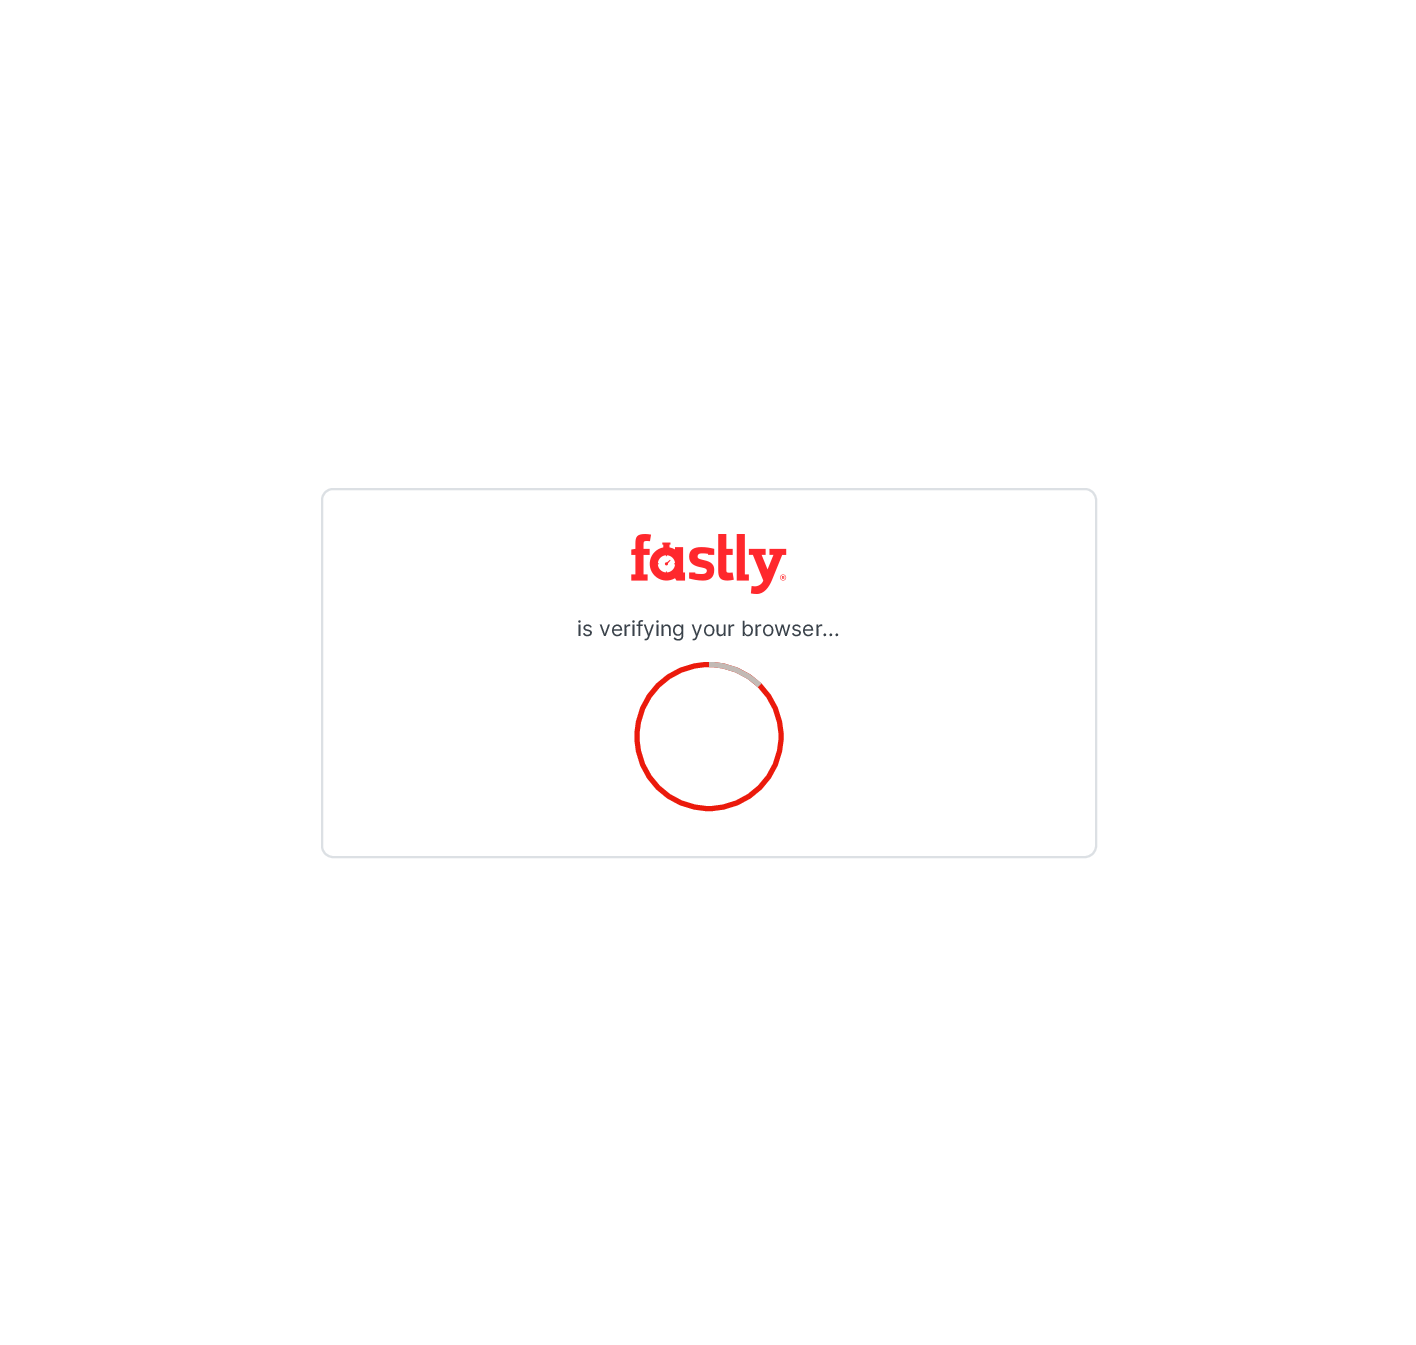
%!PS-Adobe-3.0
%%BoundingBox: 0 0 1416 1345
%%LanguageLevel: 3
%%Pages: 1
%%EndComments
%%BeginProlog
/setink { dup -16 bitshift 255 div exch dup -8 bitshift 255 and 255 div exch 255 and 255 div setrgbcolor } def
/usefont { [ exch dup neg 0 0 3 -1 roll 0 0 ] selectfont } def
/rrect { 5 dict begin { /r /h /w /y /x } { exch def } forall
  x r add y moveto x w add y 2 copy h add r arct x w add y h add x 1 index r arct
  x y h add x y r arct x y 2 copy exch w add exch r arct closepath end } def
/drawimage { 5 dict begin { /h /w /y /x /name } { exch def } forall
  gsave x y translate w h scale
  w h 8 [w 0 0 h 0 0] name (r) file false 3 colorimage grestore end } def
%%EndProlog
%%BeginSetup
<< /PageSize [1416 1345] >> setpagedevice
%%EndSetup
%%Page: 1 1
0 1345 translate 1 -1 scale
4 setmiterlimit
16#FFFFFF setink
0 0 1416 1345 rectfill
16#DCE0E4 setink
2 setlinewidth
322 489 774 368 11 rrect stroke
(img1.raw) 631 534 156 60 drawimage
/Inter-Regular 21 usefont
16#3A424A setink
577 636 moveto (is verifying your browser...) show
16#EB1A0C setink
5 setlinewidth
637 736.5 moveto 637 696.5 669 664.5 709 664.5 curveto 748.5 664.5 781 696.5 781 736.5 curveto 781 776.5 748.5 808.5 709 808.5 curveto 669 808.5 637 776.5 637 736.5 curveto closepath stroke
16#C2BAB5 setink
759.5 685.5 moveto 746 672 728 664.5 709 664.5 curveto stroke
showpage
%%EOF
